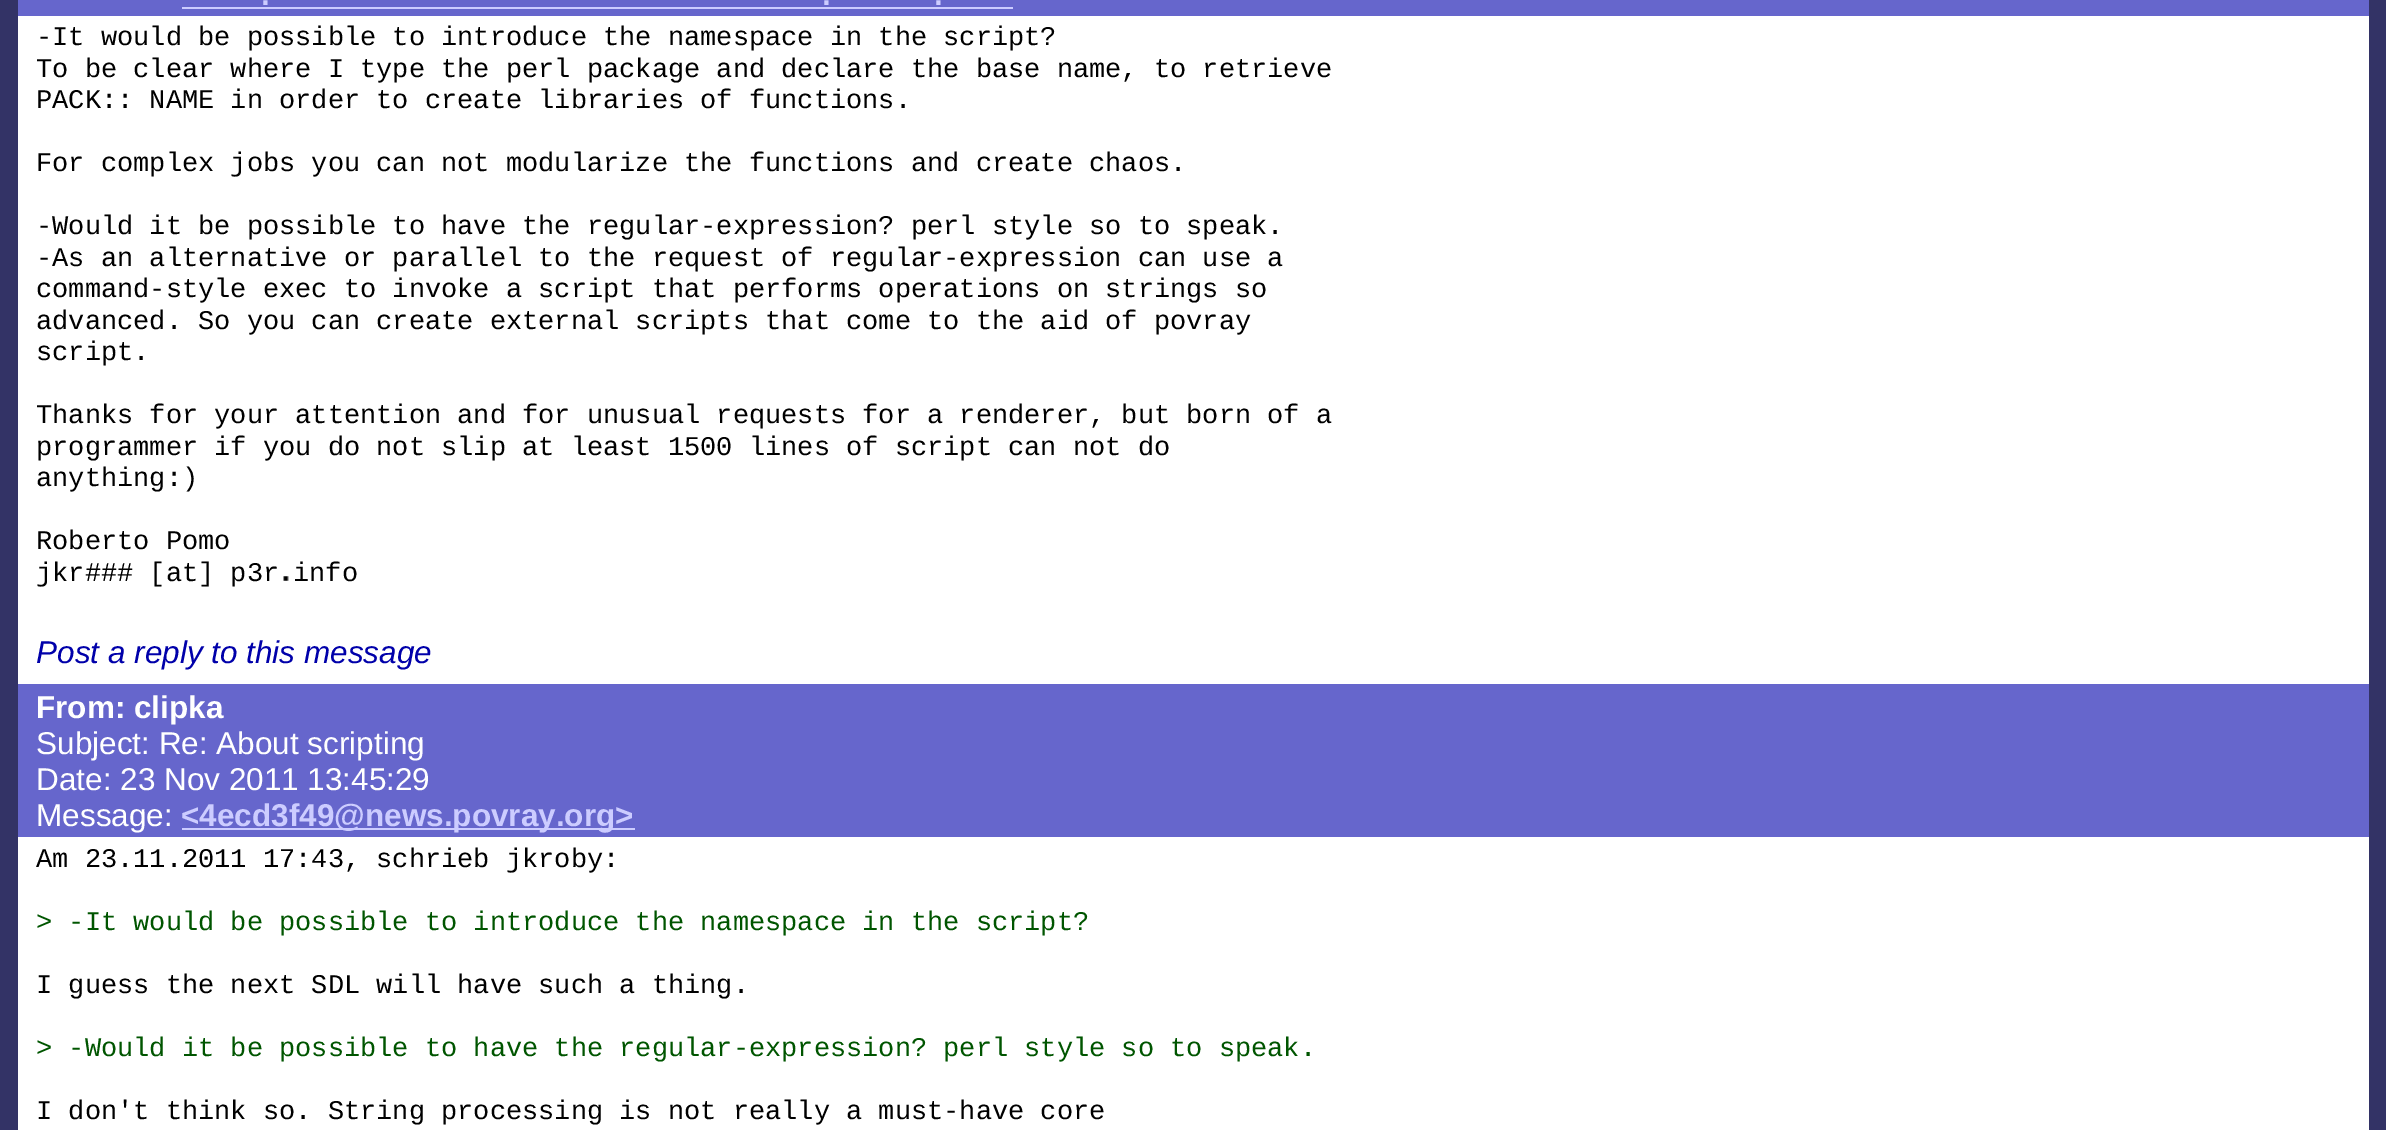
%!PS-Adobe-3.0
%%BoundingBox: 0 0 2386 1130
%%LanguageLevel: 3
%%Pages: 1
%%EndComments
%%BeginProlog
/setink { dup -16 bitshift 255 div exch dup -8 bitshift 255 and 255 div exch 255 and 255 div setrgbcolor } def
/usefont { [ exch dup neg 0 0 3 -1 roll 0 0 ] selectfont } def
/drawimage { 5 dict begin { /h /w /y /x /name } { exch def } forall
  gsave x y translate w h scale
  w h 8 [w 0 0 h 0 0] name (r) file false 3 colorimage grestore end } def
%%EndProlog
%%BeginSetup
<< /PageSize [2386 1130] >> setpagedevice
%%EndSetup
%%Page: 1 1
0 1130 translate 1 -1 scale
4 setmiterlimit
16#333366 setink
0 0 2386 1130 rectfill
16#6666CC setink
18 0 2351 16 rectfill
/LiberationSans-Bold 31.5 usefont
16#CCCCFF setink
261 5 moveto (.) show
182 7 831 2 rectfill
822 5 moveto (.) show
934 5 moveto (.) show
16#FFFFFF setink
18 16 2351 4 rectfill
18 20 2351 664 rectfill
/LiberationMono-Regular 27 usefont
16#000000 setink
[
    [(-It would be possible to introduce the namespace in the script?) 36 45]
    [(To be clear where I type the perl package and declare the base name, to retrieve) 36 77]
    [(PACK:: NAME in order to create libraries of functions.) 36 108]
    [(For complex jobs you can not modularize the functions and create chaos.) 36 171]
    [(-Would it be possible to have the regular-expression? perl style so to speak.) 36 234]
    [(-As an alternative or parallel to the request of regular-expression can use a) 36 266]
    [(command-style exec to invoke a script that performs operations on strings so) 36 297]
    [(advanced. So you can create external scripts that come to the aid of povray) 36 329]
    [(script.) 36 360]
    [(Thanks for your attention and for unusual requests for a renderer, but born of a) 36 423]
    [(programmer if you do not slip at least 1500 lines of script can not do) 36 455]
    [(anything:\)) 36 486]
    [(Roberto Pomo) 36 549]
    [(jkr### [at] p3r) 36 581]
] { aload pop moveto show } forall
(img1.raw) 283 576 6 5 drawimage
293 581 moveto (info) show
/LiberationSans-Italic 31.5 usefont
16#0000AA setink
36 663 moveto (Post a reply to this message) show
16#6666CC setink
18 684 2351 5 rectfill
18 689 2351 148 rectfill
/LiberationSans-Bold 31.5 usefont
16#FFFFFF setink
36 718 moveto (From: clipka) show
/LiberationSans-Regular 31.5 usefont
[
    [(Subject: Re: About scripting) 36 754]
    [(Date: 23 Nov 2011 13:45:29) 36 790]
    [(Message:) 36 826]
] { aload pop moveto show } forall
16#CCCCFF setink
182 828 453 2 rectfill
/LiberationSans-Bold 31.5 usefont
181 826 moveto (<4ecd3f49@news.povray.org>) show
16#FFFFFF setink
18 837 2351 5 rectfill
18 842 2351 288 rectfill
/LiberationMono-Regular 27 usefont
16#000000 setink
36 867 moveto (Am 23.11.2011 17:43, schrieb jkroby:) show
16#005500 setink
36 930 moveto (> -It would be possible to introduce the namespace in the script?) show
16#000000 setink
36 993 moveto (I guess the next SDL will have such a thing.) show
16#005500 setink
36 1056 moveto (> -Would it be possible to have the regular-expression? perl style so to speak.) show
16#000000 setink
36 1119 moveto (I don't think so. String processing is not really a must-have core) show
showpage
%%EOF
